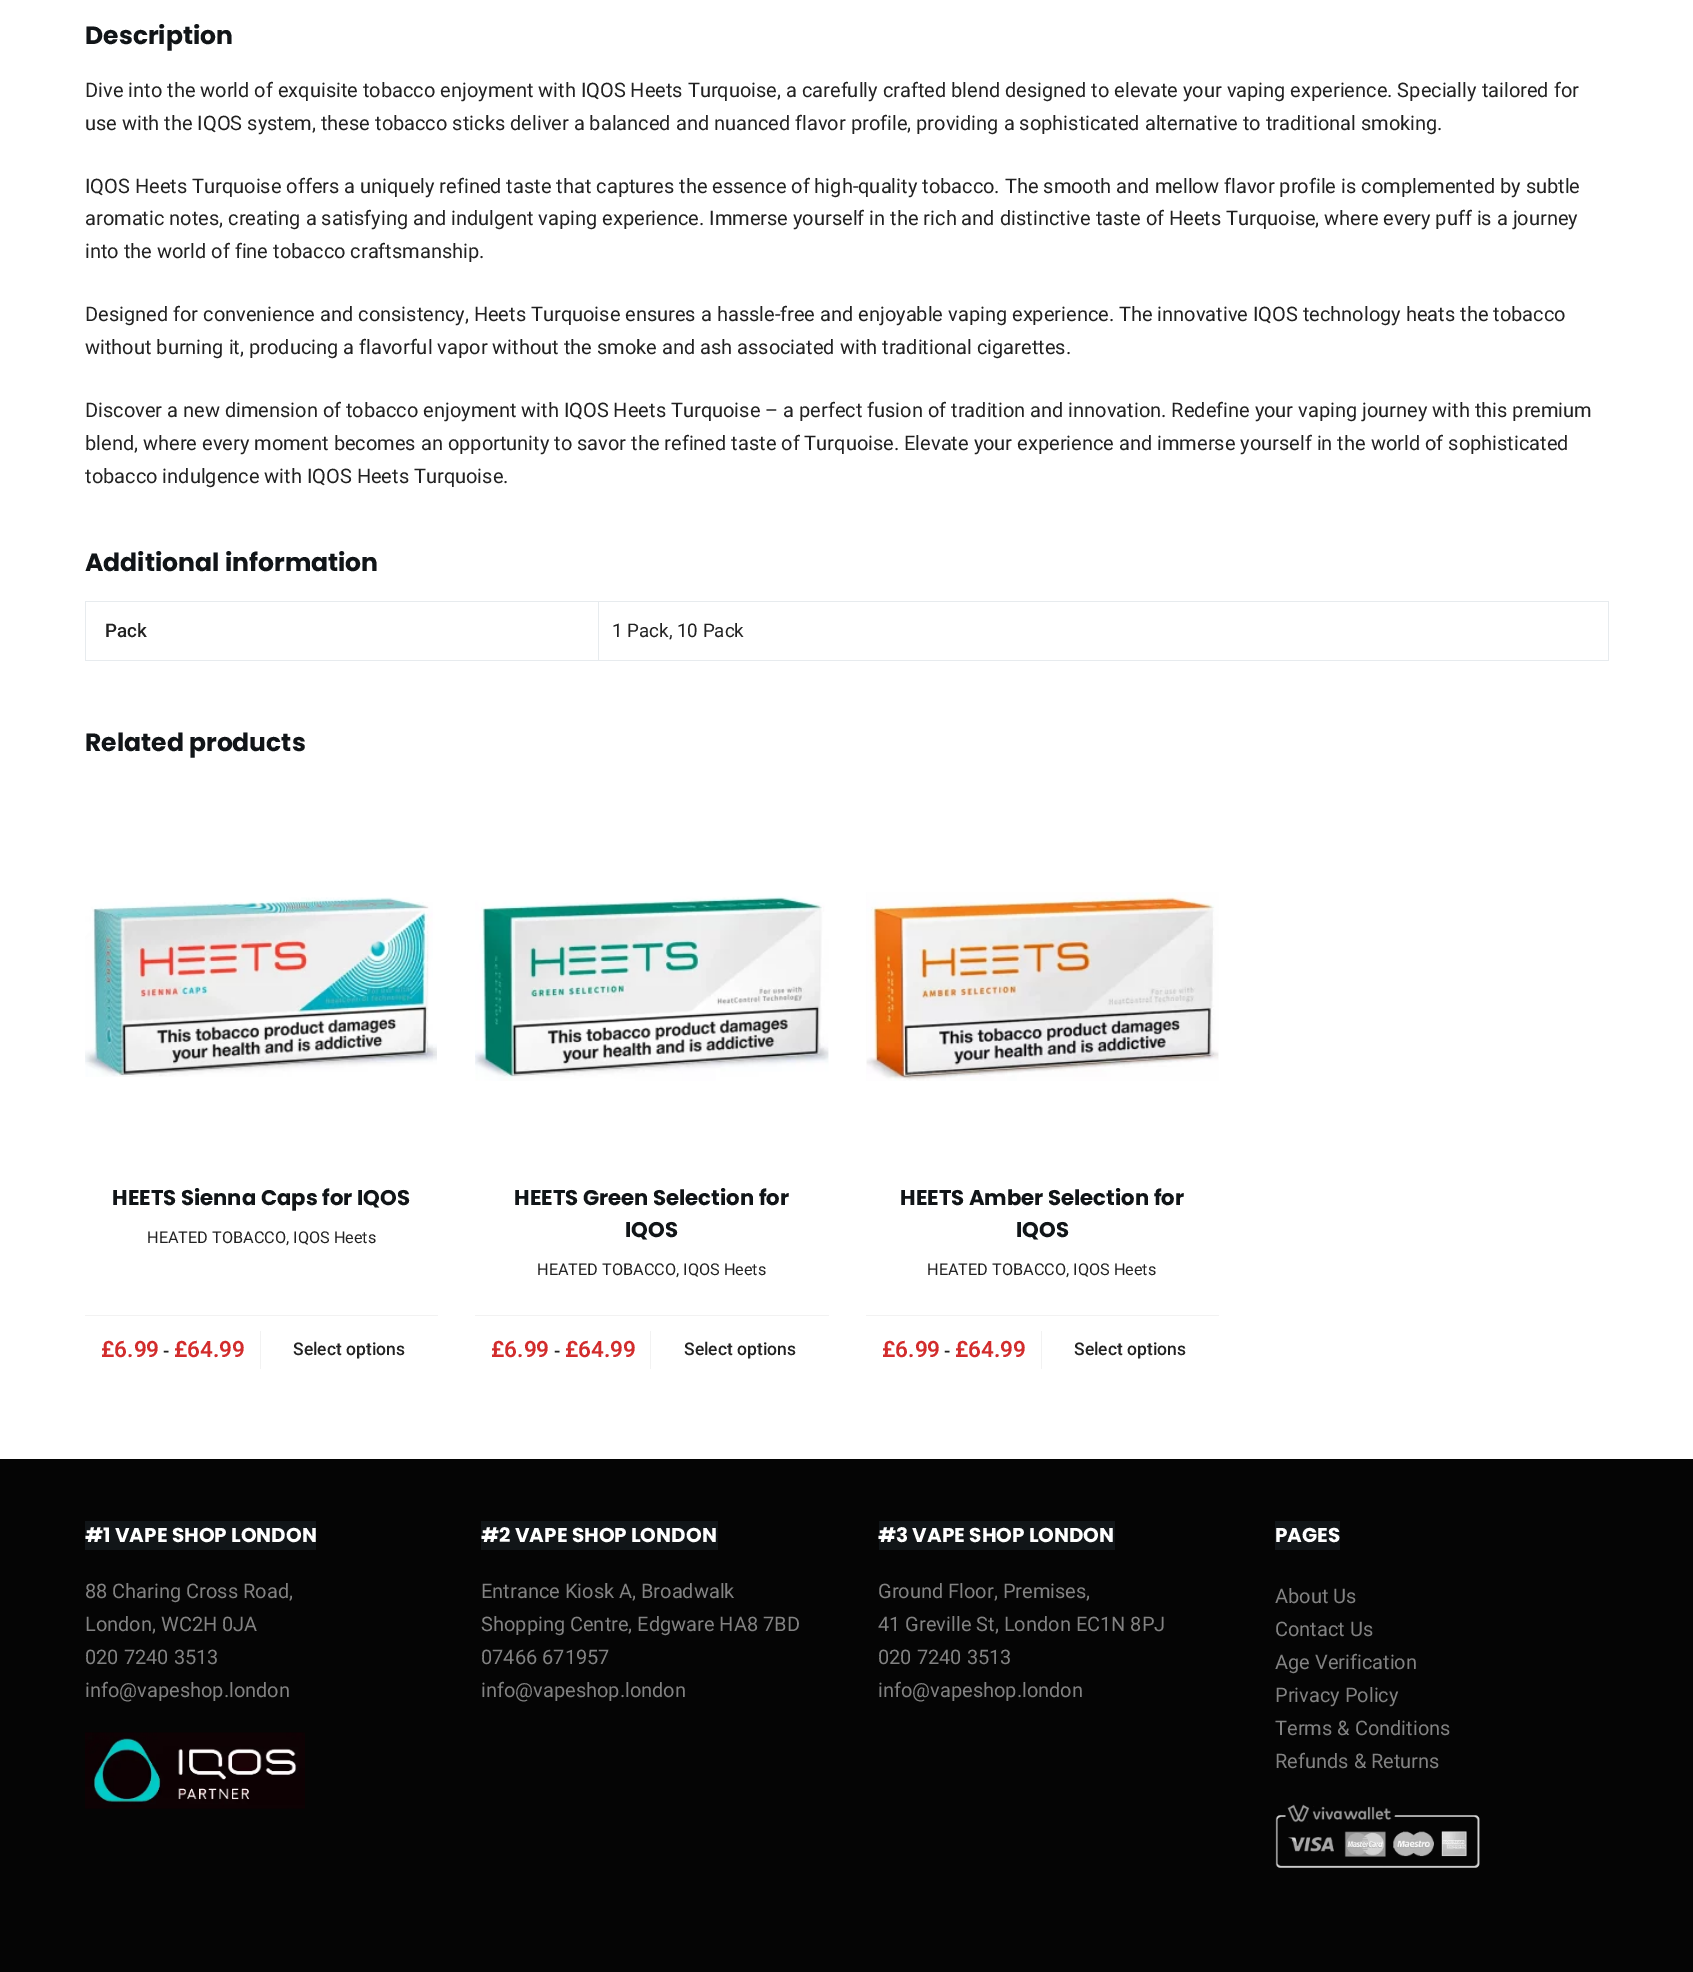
%!PS-Adobe-3.0
%%BoundingBox: 0 0 1693 1972
%%LanguageLevel: 3
%%Pages: 1
%%EndComments
%%BeginProlog
/setink { dup -16 bitshift 255 div exch dup -8 bitshift 255 and 255 div exch 255 and 255 div setrgbcolor } def
/usefont { [ exch dup neg 0 0 3 -1 roll 0 0 ] selectfont } def
/drawimage { 5 dict begin { /h /w /y /x /name } { exch def } forall
  gsave x y translate w h scale
  w h 8 [w 0 0 h 0 0] name (r) file false 3 colorimage grestore end } def
%%EndProlog
%%BeginSetup
<< /PageSize [1693 1972] >> setpagedevice
%%EndSetup
%%Page: 1 1
0 1972 translate 1 -1 scale
4 setmiterlimit
16#FFFFFF setink
0 0 1693 1972 rectfill
/Poppins-Bold 25 usefont
16#111518 setink
85 44 moveto (Description) show
/Roboto-Regular 20 usefont
16#222222 setink
[
    [(Dive into the world of exquisite tobacco enjoyment with IQOS Heets Turquoise, a carefully crafted blend designed to elevate your vaping experience. Specially tailored for) 85 97]
    [(use with the IQOS system, these tobacco sticks deliver a balanced and nuanced flavor profile, providing a sophisticated alternative to traditional smoking.) 85 130]
    [(IQOS Heets Turquoise offers a uniquely refined taste that captures the essence of high-quality tobacco. The smooth and mellow flavor profile is complemented by subtle) 85 193]
    [(aromatic notes, creating a satisfying and indulgent vaping experience. Immerse yourself in the rich and distinctive taste of Heets Turquoise, where every puff is a journey) 85 225]
    [(into the world of fine tobacco craftsmanship.) 85 258]
    [(Designed for convenience and consistency, Heets Turquoise ensures a hassle-free and enjoyable vaping experience. The innovative IQOS technology heats the tobacco) 85 321]
    [(without burning it, producing a flavorful vapor without the smoke and ash associated with traditional cigarettes.) 85 354]
    [(Discover a new dimension of tobacco enjoyment with IQOS Heets Turquoise – a perfect fusion of tradition and innovation. Redefine your vaping journey with this premium) 85 417]
    [(blend, where every moment becomes an opportunity to savor the refined taste of Turquoise. Elevate your experience and immerse yourself in the world of sophisticated) 85 450]
    [(tobacco indulgence with IQOS Heets Turquoise.) 85 483]
] { aload pop moveto show } forall
/Poppins-Bold 25 usefont
16#111518 setink
85 571 moveto (Additional information) show
[
    [85 601 1524 1 16#E7EBEE]
    [1608 601 1 60 16#E7EBEE]
    [85 660 1524 1 16#E7EBEE]
    [85 601 1 60 16#E7EBEE]
] { aload pop setink rectfill } forall
/Roboto-Medium 18.75 usefont
16#222222 setink
105 637 moveto (Pack) show
16#E7EBEE setink
598 601 1 60 rectfill
/Roboto-Regular 18.75 usefont
16#222222 setink
612 637 moveto (1 Pack, 10 Pack) show
/Poppins-Bold 25 usefont
16#111518 setink
85 751 moveto (Related products) show
(img1.raw) 85 897 352 180 drawimage
/Poppins-Bold 21.25 usefont
112 1205 moveto (HEETS Sienna Caps for IQOS) show
/Roboto-Regular 16.25 usefont
16#222222 setink
147 1243 moveto (HEATED TOBACCO, IQOS Heets) show
16#F2F2F2 setink
85 1315 353 1 rectfill
/Roboto-SemiBold 22.5 usefont
16#D22C2C setink
101 1357 moveto (£6.99) show
/Roboto-SemiBold 17.5 usefont
16#222222 setink
163 1357 moveto (-) show
/Roboto-SemiBold 22.5 usefont
16#D22C2C setink
174 1357 moveto (£64.99) show
16#F2F2F2 setink
260 1331 1 38 rectfill
/Roboto-Medium 17.5 usefont
16#222222 setink
293 1355 moveto (Select options) show
(img2.raw) 475 896 354 185 drawimage
/Poppins-Bold 21.25 usefont
16#111518 setink
514 1205 moveto (HEETS Green Selection for) show
625 1237 moveto (IQOS) show
/Roboto-Regular 16.25 usefont
16#222222 setink
537 1275 moveto (HEATED TOBACCO, IQOS Heets) show
16#F2F2F2 setink
475 1315 354 1 rectfill
/Roboto-SemiBold 22.5 usefont
16#D22C2C setink
491 1357 moveto (£6.99) show
/Roboto-SemiBold 17.5 usefont
16#222222 setink
554 1357 moveto (-) show
/Roboto-SemiBold 22.5 usefont
16#D22C2C setink
565 1357 moveto (£64.99) show
16#F2F2F2 setink
650 1331 1 38 rectfill
/Roboto-Medium 17.5 usefont
16#222222 setink
684 1355 moveto (Select options) show
(img3.raw) 866 892 353 189 drawimage
/Poppins-Bold 21.25 usefont
16#111518 setink
900 1205 moveto (HEETS Amber Selection for) show
1016 1237 moveto (IQOS) show
/Roboto-Regular 16.25 usefont
16#222222 setink
927 1275 moveto (HEATED TOBACCO, IQOS Heets) show
16#F2F2F2 setink
866 1315 353 1 rectfill
/Roboto-SemiBold 22.5 usefont
16#D22C2C setink
882 1357 moveto (£6.99) show
/Roboto-SemiBold 17.5 usefont
16#222222 setink
944 1357 moveto (-) show
/Roboto-SemiBold 22.5 usefont
16#D22C2C setink
955 1357 moveto (£64.99) show
16#F2F2F2 setink
1041 1331 1 38 rectfill
/Roboto-Medium 17.5 usefont
16#222222 setink
1074 1355 moveto (Select options) show
16#050505 setink
0 1459 1693 513 rectfill
16#111518 setink
85 1521 231 29 rectfill
/Poppins-Bold 20 usefont
16#FFFFFF setink
85 1542 moveto (#1 VAPE SHOP LONDON) show
/Roboto-Regular 20 usefont
16#828282 setink
[
    [(88 Charing Cross Road,) 85 1598]
    [(London, WC2H 0JA) 85 1631]
    [(020 7240 3513) 85 1664]
    [(info@vapeshop.london) 85 1697]
] { aload pop moveto show } forall
(img4.raw) 85 1732 220 77 drawimage
16#111518 setink
481 1521 237 29 rectfill
/Poppins-Bold 20 usefont
16#FFFFFF setink
481 1542 moveto (#2 VAPE SHOP LONDON) show
/Roboto-Regular 20 usefont
16#828282 setink
[
    [(Entrance Kiosk A, Broadwalk) 481 1598]
    [(Shopping Centre, Edgware HA8 7BD) 481 1631]
    [(07466 671957) 481 1664]
    [(info@vapeshop.london) 481 1697]
] { aload pop moveto show } forall
16#111518 setink
879 1521 236 29 rectfill
/Poppins-Bold 20 usefont
16#FFFFFF setink
878 1542 moveto (#3 VAPE SHOP LONDON) show
/Roboto-Regular 20 usefont
16#828282 setink
[
    [(Ground Floor, Premises,) 878 1598]
    [(41 Greville St, London EC1N 8PJ) 878 1631]
    [(020 7240 3513) 878 1664]
    [(info@vapeshop.london) 878 1697]
] { aload pop moveto show } forall
16#111518 setink
1275 1521 65 29 rectfill
/Poppins-Bold 20 usefont
16#FFFFFF setink
1275 1542 moveto (PAGES) show
/Roboto-Regular 20 usefont
16#828282 setink
[
    [(About Us) 1275 1603]
    [(Contact Us) 1275 1636]
    [(Age Verification) 1275 1669]
    [(Privacy Policy) 1275 1702]
    [(Terms & Conditions) 1275 1735]
    [(Refunds & Returns) 1275 1768]
] { aload pop moveto show } forall
(img5.raw) 1275 1804 205 64 drawimage
showpage
%%EOF
